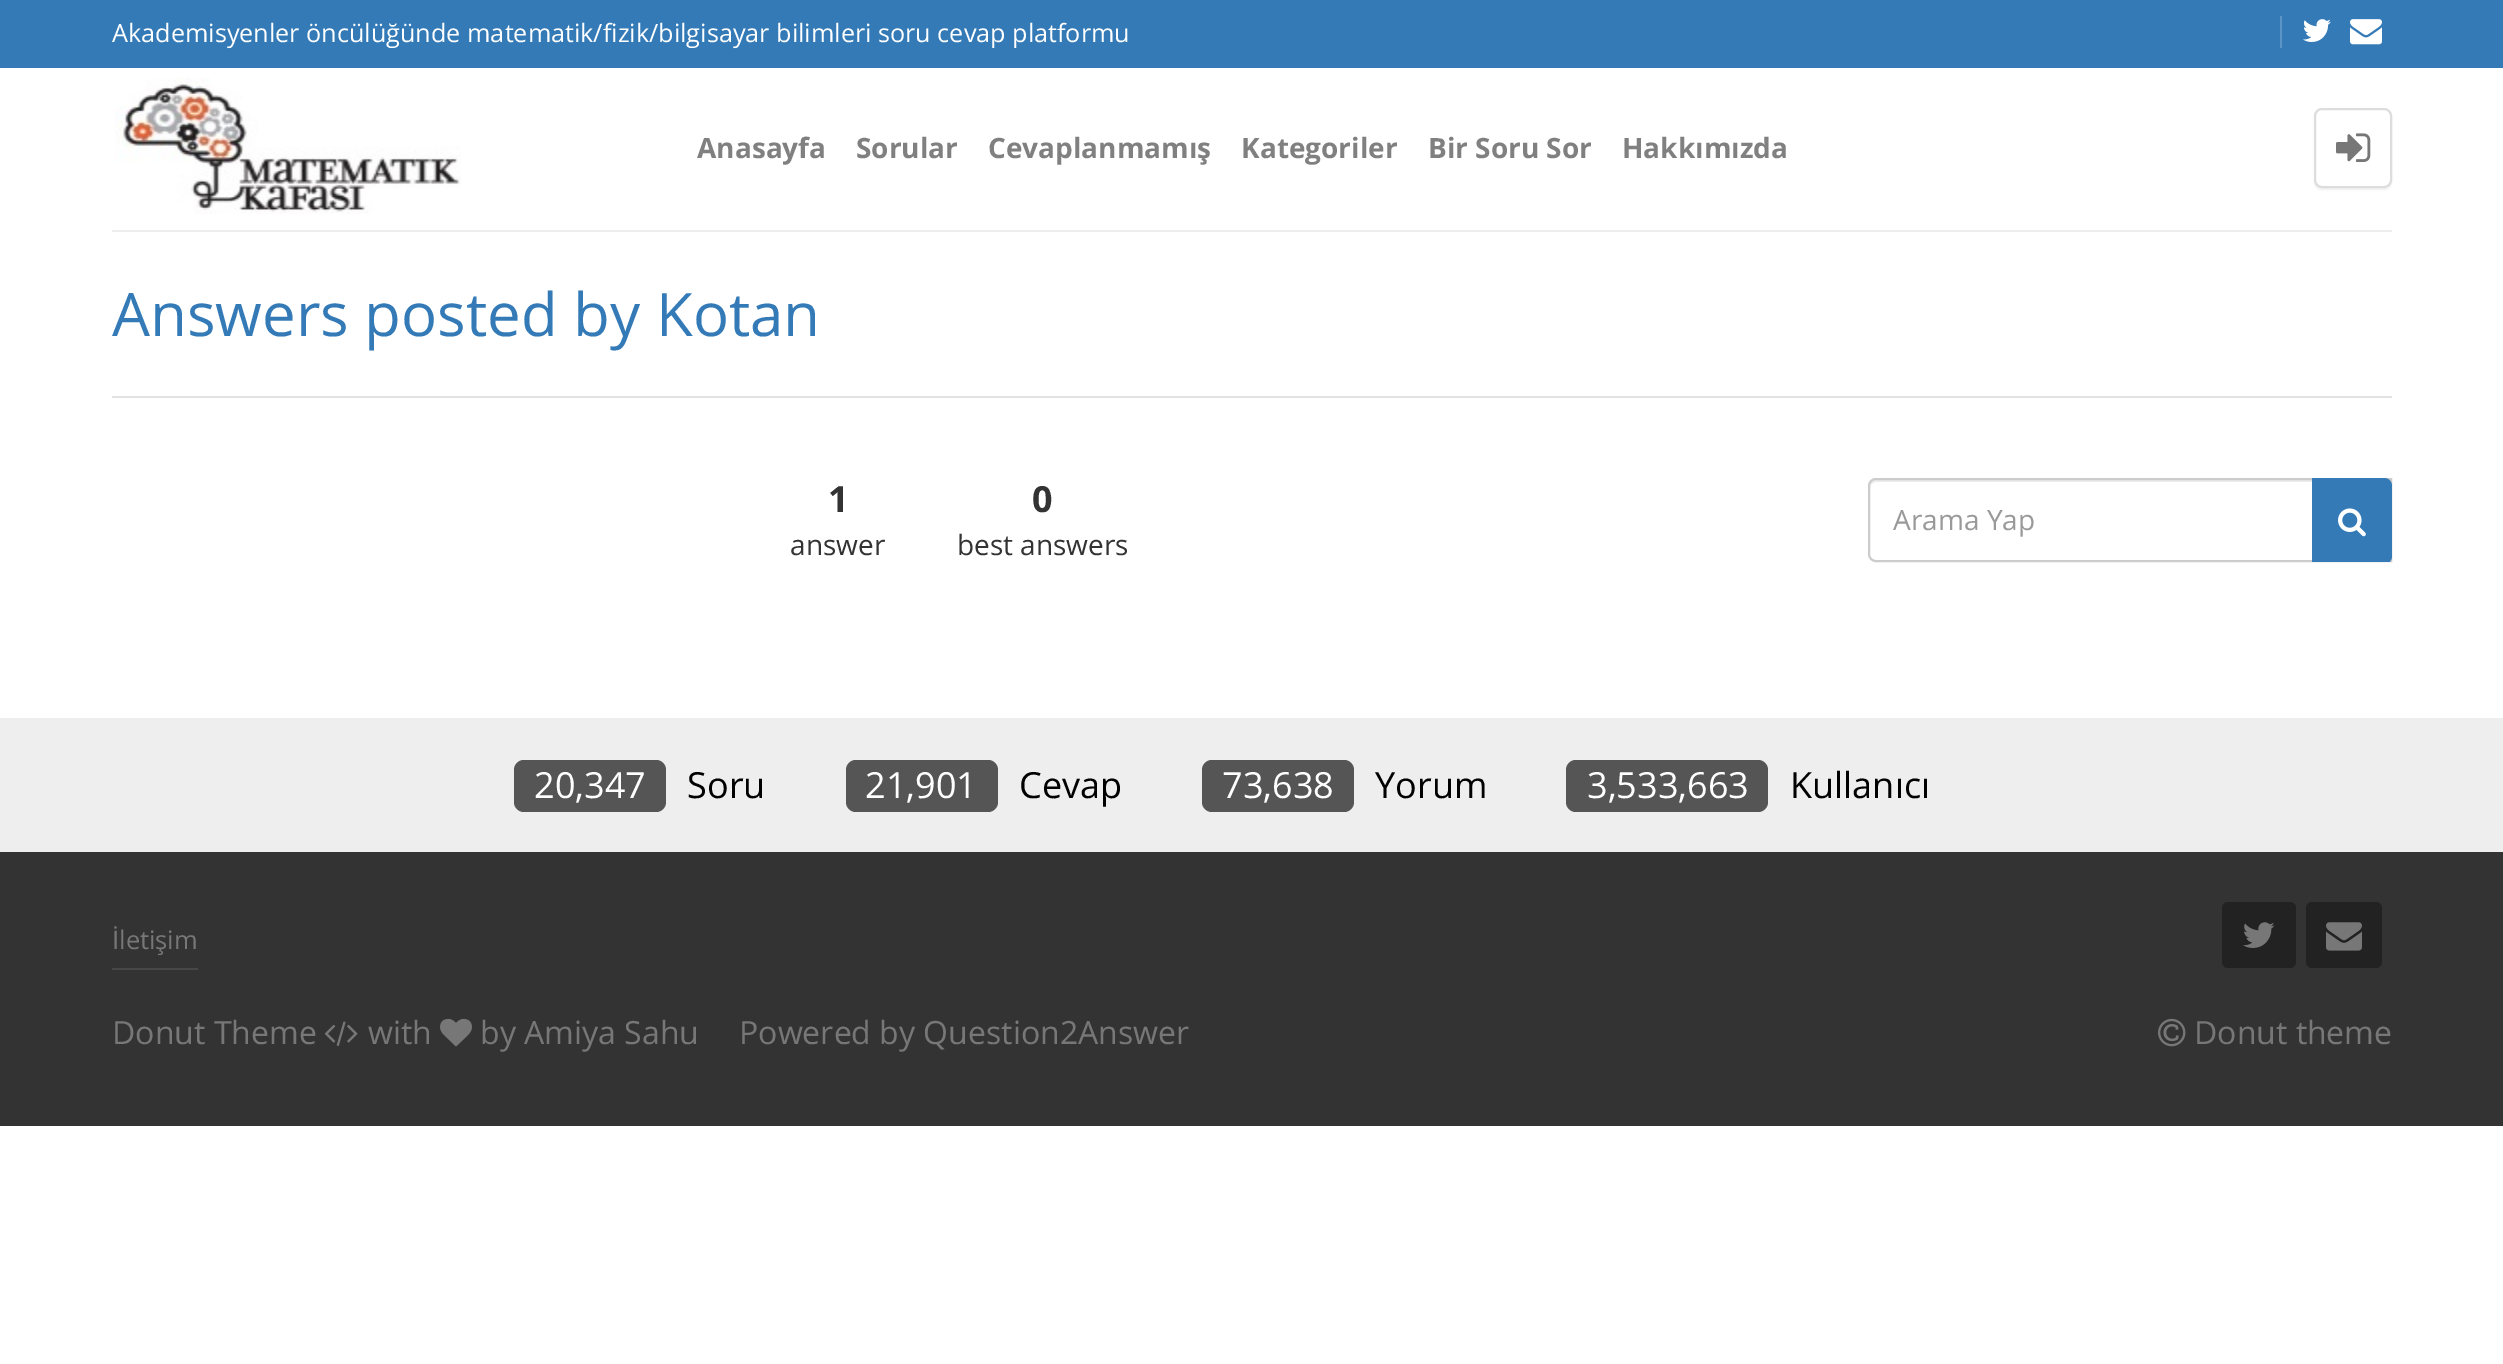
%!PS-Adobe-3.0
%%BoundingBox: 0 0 2503 1364
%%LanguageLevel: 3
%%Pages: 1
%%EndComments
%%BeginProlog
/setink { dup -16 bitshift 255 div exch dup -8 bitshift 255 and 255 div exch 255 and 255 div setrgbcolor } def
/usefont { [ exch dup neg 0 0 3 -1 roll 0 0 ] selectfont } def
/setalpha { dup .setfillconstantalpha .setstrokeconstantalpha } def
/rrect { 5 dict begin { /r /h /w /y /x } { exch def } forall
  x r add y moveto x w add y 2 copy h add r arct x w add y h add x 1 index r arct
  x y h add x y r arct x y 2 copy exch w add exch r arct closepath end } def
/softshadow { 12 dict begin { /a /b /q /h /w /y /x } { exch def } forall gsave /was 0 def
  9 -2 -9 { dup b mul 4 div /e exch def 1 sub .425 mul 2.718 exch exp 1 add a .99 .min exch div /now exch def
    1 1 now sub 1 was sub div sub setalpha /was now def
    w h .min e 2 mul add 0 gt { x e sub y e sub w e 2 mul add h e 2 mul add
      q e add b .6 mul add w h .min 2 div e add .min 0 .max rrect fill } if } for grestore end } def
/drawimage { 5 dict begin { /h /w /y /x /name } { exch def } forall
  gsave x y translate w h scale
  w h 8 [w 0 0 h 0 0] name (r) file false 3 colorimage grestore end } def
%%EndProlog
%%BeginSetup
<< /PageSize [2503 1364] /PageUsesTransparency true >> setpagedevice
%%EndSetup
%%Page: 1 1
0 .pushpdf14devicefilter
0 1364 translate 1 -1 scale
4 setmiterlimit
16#FFFFFF setink
0 0 2503 1364 rectfill
16#337AB7 setink
0 0 2503 68 rectfill
/OpenSans-Regular 25.2 usefont
16#FFFFFF setink
112 42 moveto (Akademisyenler öncülüğünde matematik/fizik/bilgisayar bilimleri soru cevap platformu) show
16#5C95C5 setink
2280 16 2 32 rectfill
(img1.raw) 2303 19 28 23 drawimage
(img2.raw) 2350 19 32 26 drawimage
(img3.raw) 115 78 346 136 drawimage
/OpenSans-Bold 28 usefont
16#808080 setink
[
    [(Anasayfa) 697 158]
    [(Sorular) 856 158]
    [(Cevaplanmamış) 988 158]
    [(Kategoriler) 1241 158]
    [(Bir Soru Sor) 1428 158]
    [(Hakkımızda) 1622 158]
] { aload pop moveto show } forall
16#000000 setink
2314 110 78 80 8 1 0.05 softshadow
16#FFFFFF setink
2315 109 76 78 7 rrect gsave fill grestore
16#DDDDDD setink
2 setlinewidth
stroke
(img4.raw) 2336 133 35 29 drawimage
16#EEEEEE setink
112 230 2280 2 rectfill
16#E2E2E2 setink
112 396 2280 2 rectfill
/OpenSans-Regular 60 usefont
16#337AB7 setink
112 336 moveto (Answers posted by Kotan) show
/OpenSans-Bold 36 usefont
16#333333 setink
828 512 moveto (1) show
/OpenSans-Regular 28 usefont
790 555 moveto (answer) show
/OpenSans-Bold 36 usefont
1032 512 moveto (0) show
/OpenSans-Regular 28 usefont
957 555 moveto (best answers) show
16#ECECEC setink
1876 482 moveto 2390 482 lineto 2390 480 lineto 1876 480 lineto 1873 480 1870 483 1870 486 curveto 1870 488 lineto 1870 485 1873 482 1876 482 curveto closepath fill
16#CCCCCC setink
1876 479 moveto 2391 479 lineto 2391 561 lineto 1876 561 lineto 1872 561 1869 558 1869 554 curveto 1869 486 lineto 1869 482 1872 479 1876 479 curveto closepath stroke
16#999999 setink
1893 530 moveto (Arama Yap) show
gsave
1868 478 524 84 rectclip
16#337AB7 setink
2312 478 moveto 2384 478 lineto 2388.5 478 2392 481.5 2392 486 curveto 2392 556 lineto 2392 560.5 2388.5 564 2384 564 curveto 2312 564 lineto closepath fill
grestore
(img5.raw) 2338 508 28 29 drawimage
16#EEEEEE setink
0 718 2503 134 rectfill
16#555555 setink
514 760 152 52 10 rrect fill
/OpenSans-Regular 36 usefont
16#FFFFFF setink
534 798 moveto (20,347) show
16#000000 setink
687 798 moveto (Soru) show
16#555555 setink
846 760 152 52 10 rrect fill
16#FFFFFF setink
865 798 moveto (21,901) show
16#000000 setink
1019 798 moveto (Cevap) show
16#555555 setink
1202 760 152 52 10 rrect fill
16#FFFFFF setink
1222 798 moveto (73,638) show
16#000000 setink
1375 798 moveto (Yorum) show
16#555555 setink
1566 760 202 52 10 rrect fill
16#FFFFFF setink
1587 798 moveto (3,533,663) show
16#000000 setink
1790 798 moveto (Kullanıcı) show
16#333333 setink
0 852 2503 274 rectfill
16#474747 setink
112 968 86 2 rectfill
/OpenSans-Regular 25.5 usefont
16#777777 setink
112 949 moveto (İletişim) show
16#222222 setink
2222 902 74 66 6 rrect fill
(img6.raw) 2243 922 32 26 drawimage
2306 902 76 66 6 rrect fill
(img7.raw) 2326 922 36 29 drawimage
/OpenSans-Regular 32 usefont
16#777777 setink
112 1044 moveto (Donut Theme) show
(img8.raw) 324 1021 34 25 drawimage
368 1044 moveto (with) show
(img9.raw) 440 1018 32 29 drawimage
480 1044 moveto (by Amiya Sahu) show
739 1044 moveto (Powered by Question2Answer) show
(img10.raw) 2158 1018 28 29 drawimage
2194 1044 moveto (Donut theme) show
.poppdf14devicefilter showpage
%%EOF
